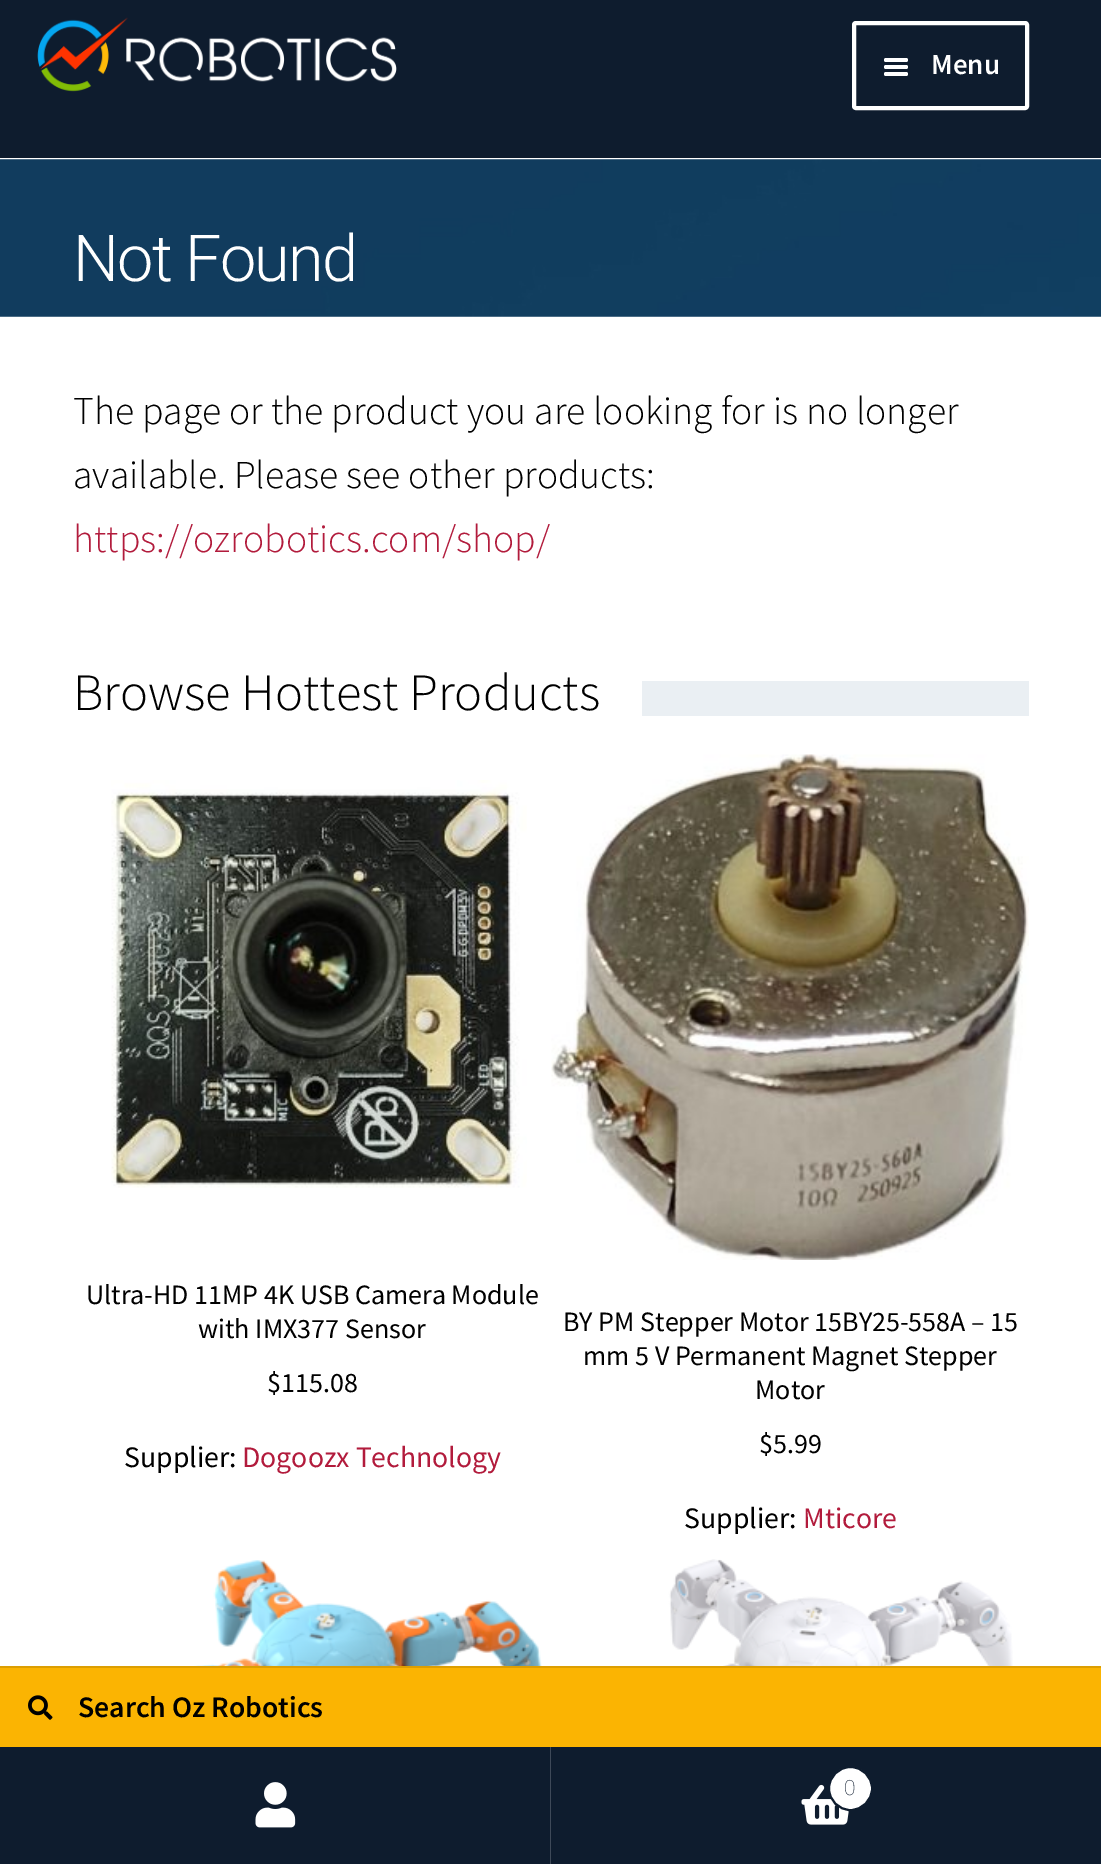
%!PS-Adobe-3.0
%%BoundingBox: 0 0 1101 1864
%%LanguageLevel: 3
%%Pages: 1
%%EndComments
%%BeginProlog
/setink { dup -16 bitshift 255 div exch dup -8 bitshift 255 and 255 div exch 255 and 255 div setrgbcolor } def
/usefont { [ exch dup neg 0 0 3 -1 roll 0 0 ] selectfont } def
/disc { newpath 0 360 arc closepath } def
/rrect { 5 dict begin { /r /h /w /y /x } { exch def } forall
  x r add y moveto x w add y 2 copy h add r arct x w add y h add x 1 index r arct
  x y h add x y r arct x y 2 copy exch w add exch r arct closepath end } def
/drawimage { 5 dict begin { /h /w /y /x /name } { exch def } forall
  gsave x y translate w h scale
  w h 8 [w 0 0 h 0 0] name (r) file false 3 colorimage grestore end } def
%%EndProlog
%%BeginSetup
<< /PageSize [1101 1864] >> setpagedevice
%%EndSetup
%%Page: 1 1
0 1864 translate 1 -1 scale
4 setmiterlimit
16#FFFFFF setink
0 0 1101 1864 rectfill
16#0E1C2E setink
0 0 1101 158 rectfill
(img1.raw) 37 17 360 75 drawimage
16#FFFFFF setink
4 setlinewidth
854 23 173 85 2 rrect stroke
884 58 24 4 2 rrect fill
884 65 24 4 2 rrect fill
/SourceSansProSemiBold-SemiBold 29 usefont
931 74 moveto (Menu) show
884 72 24 4 2 rrect fill
(img2.raw) 0 159 1101 158 drawimage
/Roboto-Light 64.75 usefont
73 281 moveto -1.75 0 (Not Found) ashow
/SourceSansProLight-Light 39.6 usefont
16#000000 setink
73 424 moveto (The page or the product you are looking for is no longer) show
73 488 moveto (available. Please see other products:) show
16#B21B3C setink
73 552 moveto (https://ozrobotics.com/shop/) show
/SourceSansProLight-Light 52.5 usefont
16#000000 setink
73 710 moveto (Browse Hottest Products) show
16#EAEFF3 setink
642 681 387 35 rectfill
(img3.raw) 111 780 416 408 drawimage
/SourceSansPro-Regular 28 usefont
16#000000 setink
[
    [(Ultra-HD 11MP 4K USB Camera Module) 86 1304]
    [(with IMX377 Sensor) 198 1338]
    [($115.08) 267 1392]
] { aload pop moveto show } forall
/SourceSansPro-Regular 29.75 usefont
124 1467 moveto (Supplier:) show
16#B21B3C setink
242 1467 moveto (Dogoozx Technology) show
(img4.raw) 551 754 478 506 drawimage
/SourceSansPro-Regular 28 usefont
16#000000 setink
[
    [(BY PM Stepper Motor 15BY25-558A – 15) 563 1331]
    [(mm 5 V Permanent Magnet Stepper) 583 1365]
    [(Motor) 755 1399]
    [($5.99) 759 1453]
] { aload pop moveto show } forall
/SourceSansPro-Regular 29.75 usefont
684 1528 moveto (Supplier:) show
16#B21B3C setink
803 1528 moveto (Mticore) show
(img5.raw) 194 1560 348 106 drawimage
(img6.raw) 668 1559 345 107 drawimage
16#0E1C2E setink
0 1747 550 117 rectfill
16#FBB402 setink
0 1668 1101 79 rectfill
(img7.raw) 28 1695 25 25 drawimage
16#DC9E02 setink
0 1666 1101 2 rectfill
/SourceSansProSemiBold-SemiBold 29.75 usefont
16#000000 setink
78 1717 moveto (Search Oz Robotics) show
16#3E4958 setink
550 1747 1 117 rectfill
(img8.raw) 255 1782 41 46 drawimage
16#0E1C2E setink
551 1747 550 117 rectfill
(img9.raw) 801 1784 48 41 drawimage
16#FFFFFF setink
850.5 1788.5 21.5 disc gsave fill grestore
16#0E1C2E setink
2 setlinewidth
stroke
/Roboto-Thin 21 usefont
844 1795 moveto (0) show
showpage
%%EOF
